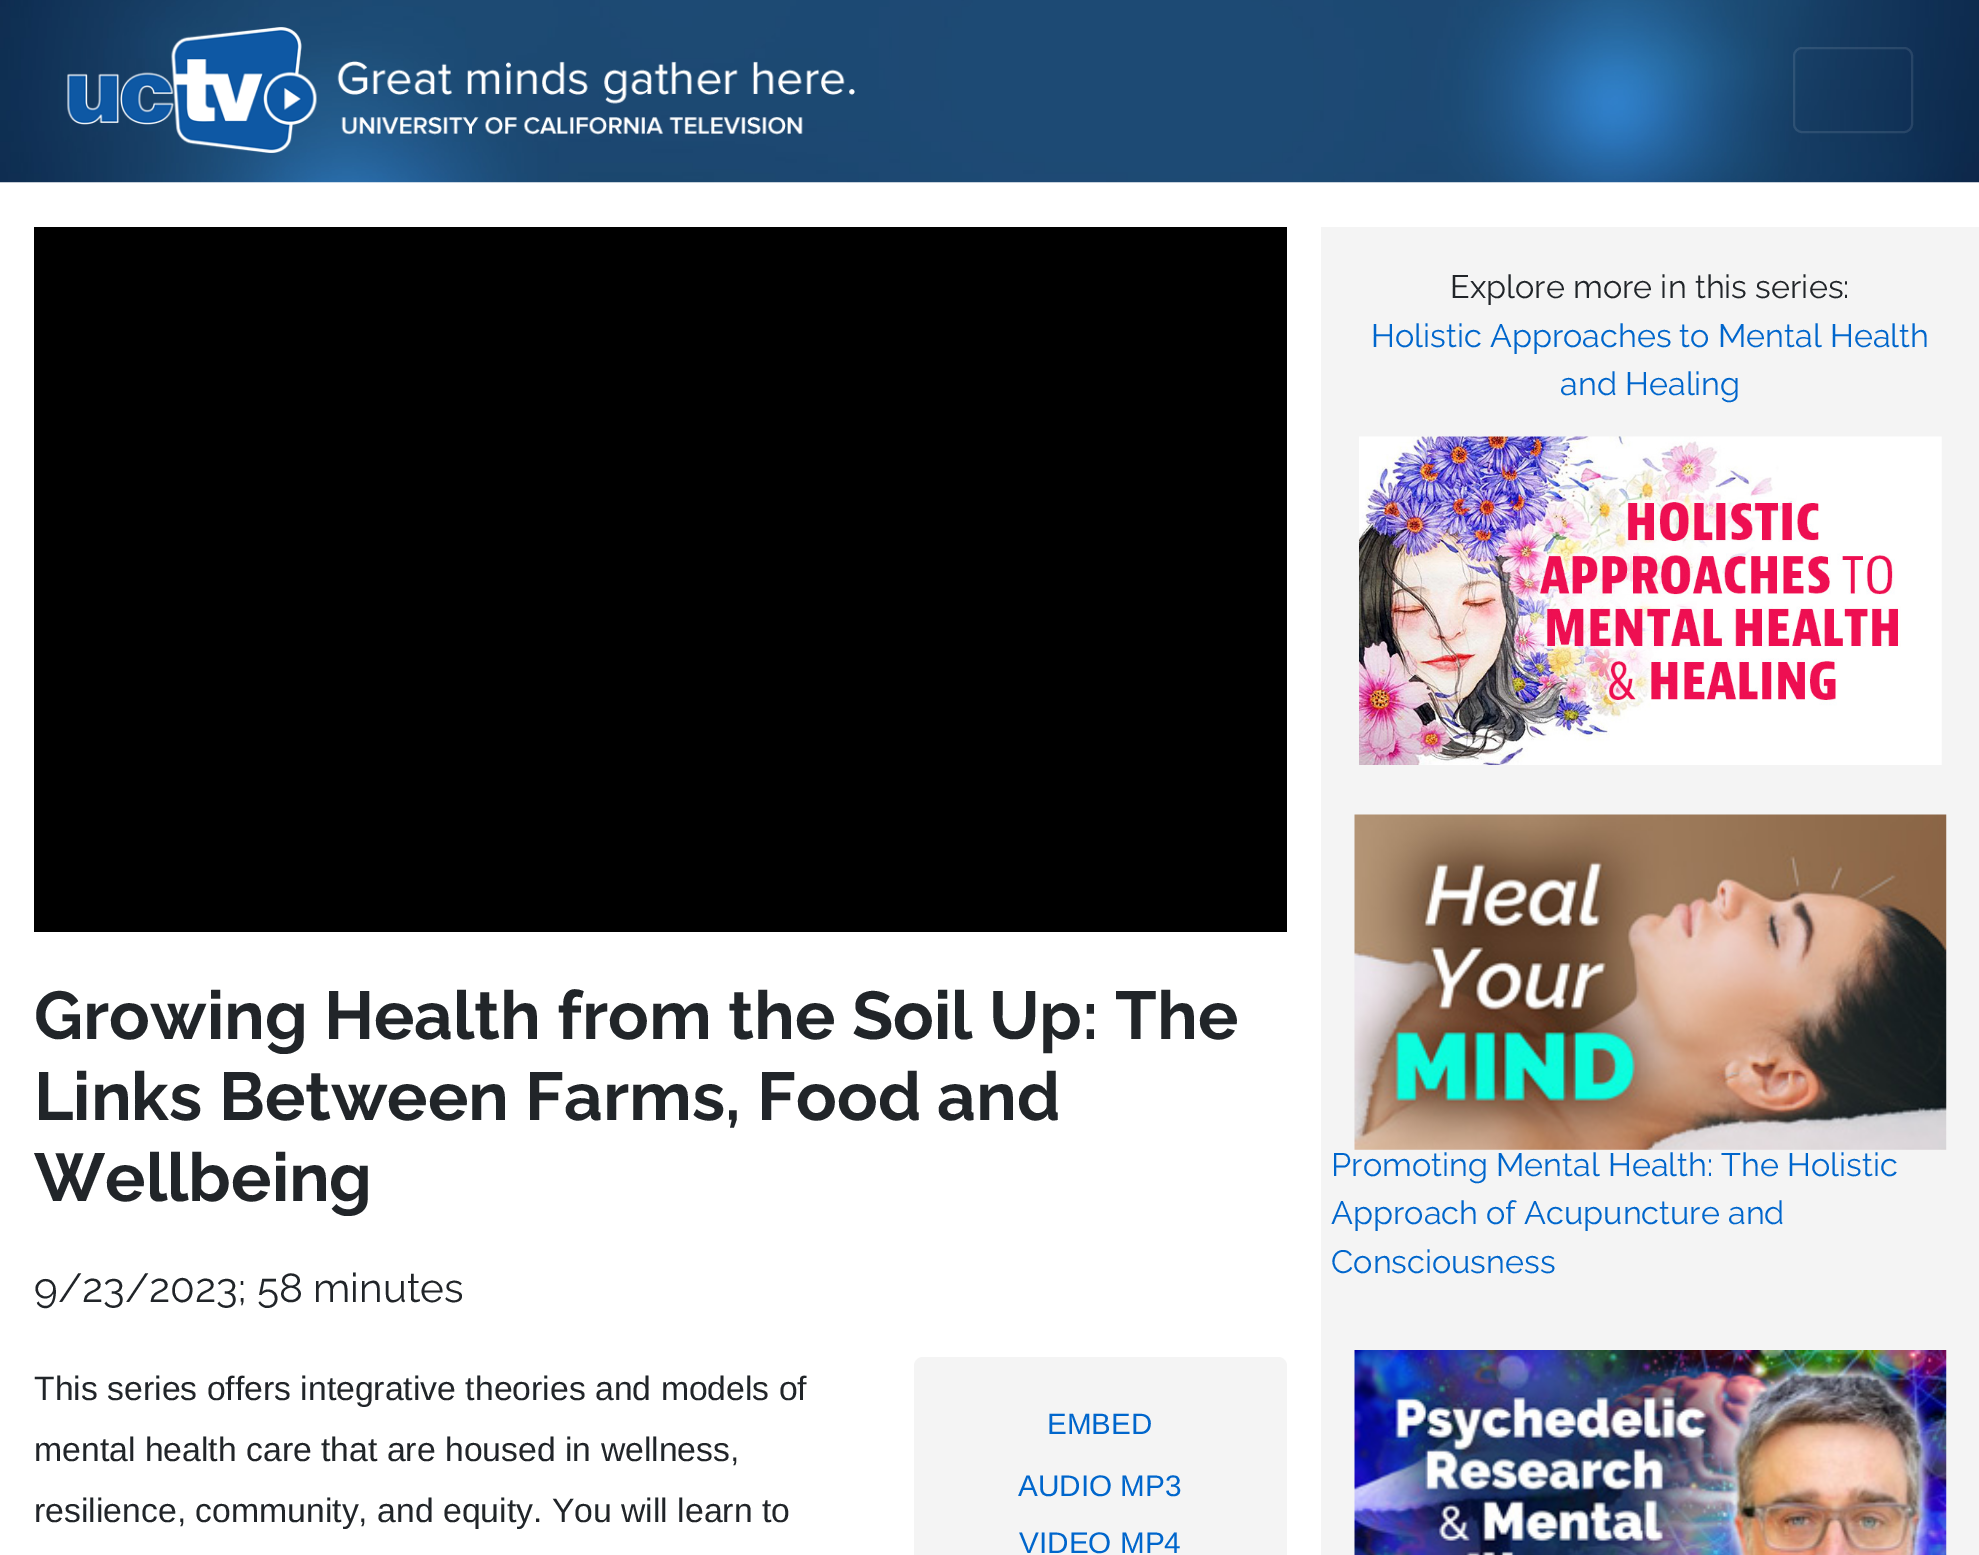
%!PS-Adobe-3.0
%%BoundingBox: 0 0 1979 1555
%%LanguageLevel: 3
%%Pages: 1
%%EndComments
%%BeginProlog
/setink { dup -16 bitshift 255 div exch dup -8 bitshift 255 and 255 div exch 255 and 255 div setrgbcolor } def
/usefont { [ exch dup neg 0 0 3 -1 roll 0 0 ] selectfont } def
/setalpha { dup .setfillconstantalpha .setstrokeconstantalpha } def
/rrect { 5 dict begin { /r /h /w /y /x } { exch def } forall
  x r add y moveto x w add y 2 copy h add r arct x w add y h add x 1 index r arct
  x y h add x y r arct x y 2 copy exch w add exch r arct closepath end } def
/drawimage { 5 dict begin { /h /w /y /x /name } { exch def } forall
  gsave x y translate w h scale
  w h 8 [w 0 0 h 0 0] name (r) file false 3 colorimage grestore end } def
%%EndProlog
%%BeginSetup
<< /PageSize [1979 1555] /PageUsesTransparency true >> setpagedevice
%%EndSetup
%%Page: 1 1
0 .pushpdf14devicefilter
0 1555 translate 1 -1 scale
4 setmiterlimit
16#FFFFFF setink
0 0 1979 1555 rectfill
(img1.raw) 0 0 1979 183 drawimage
(img2.raw) 67 27 788 126 drawimage
0.1 setalpha
2 setlinewidth
1794 48 118 84 8 rrect stroke
1 setalpha
16#000000 setink
34 227 1253 705 rectfill
/Raleway-Bold 67.5 usefont
16#212529 setink
[
    [(Growing Health from the Soil Up: The) 34 1039]
    [(Links Between Farms, Food and) 34 1120]
    [(Wellbeing) 34 1201]
] { aload pop moveto show } forall
/Raleway-Regular 40.5 usefont
34 1302 moveto (9/23/2023; 58 minutes) show
/LiberationSans-Regular 33.75 usefont
[
    [(This series offers integrative theories and models of) 34 1400]
    [(mental health care that are housed in wellness,) 34 1461]
    [(resilience, community, and equity. You will learn to) 34 1522]
] { aload pop moveto show } forall
16#F4F4F4 setink
914 1357 373 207 9 rrect fill
/LiberationSans-Regular 29.5 usefont
16#0066CC setink
1047 1434 moveto (EMBED) show
/LiberationSans-Regular 29.75 usefont
1018 1496 moveto (AUDIO MP3) show
1019 1553 moveto (VIDEO MP4) show
16#F4F4F4 setink
1321 227 658 1328 rectfill
/Raleway-Regular 32.4 usefont
16#212529 setink
1450 298 moveto (Explore more in this series:) show
16#0066CC setink
1371 347 moveto (Holistic Approaches to Mental Health) show
1560 395 moveto (and Healing) show
(img3.raw) 1359 436 583 329 drawimage
(img4.raw) 1354 814 593 336 drawimage
[
    [(Promoting Mental Health: The Holistic) 1331 1176]
    [(Approach of Acupuncture and) 1331 1224]
    [(Consciousness) 1331 1273]
] { aload pop moveto show } forall
(img5.raw) 1354 1350 593 205 drawimage
.poppdf14devicefilter showpage
%%EOF
